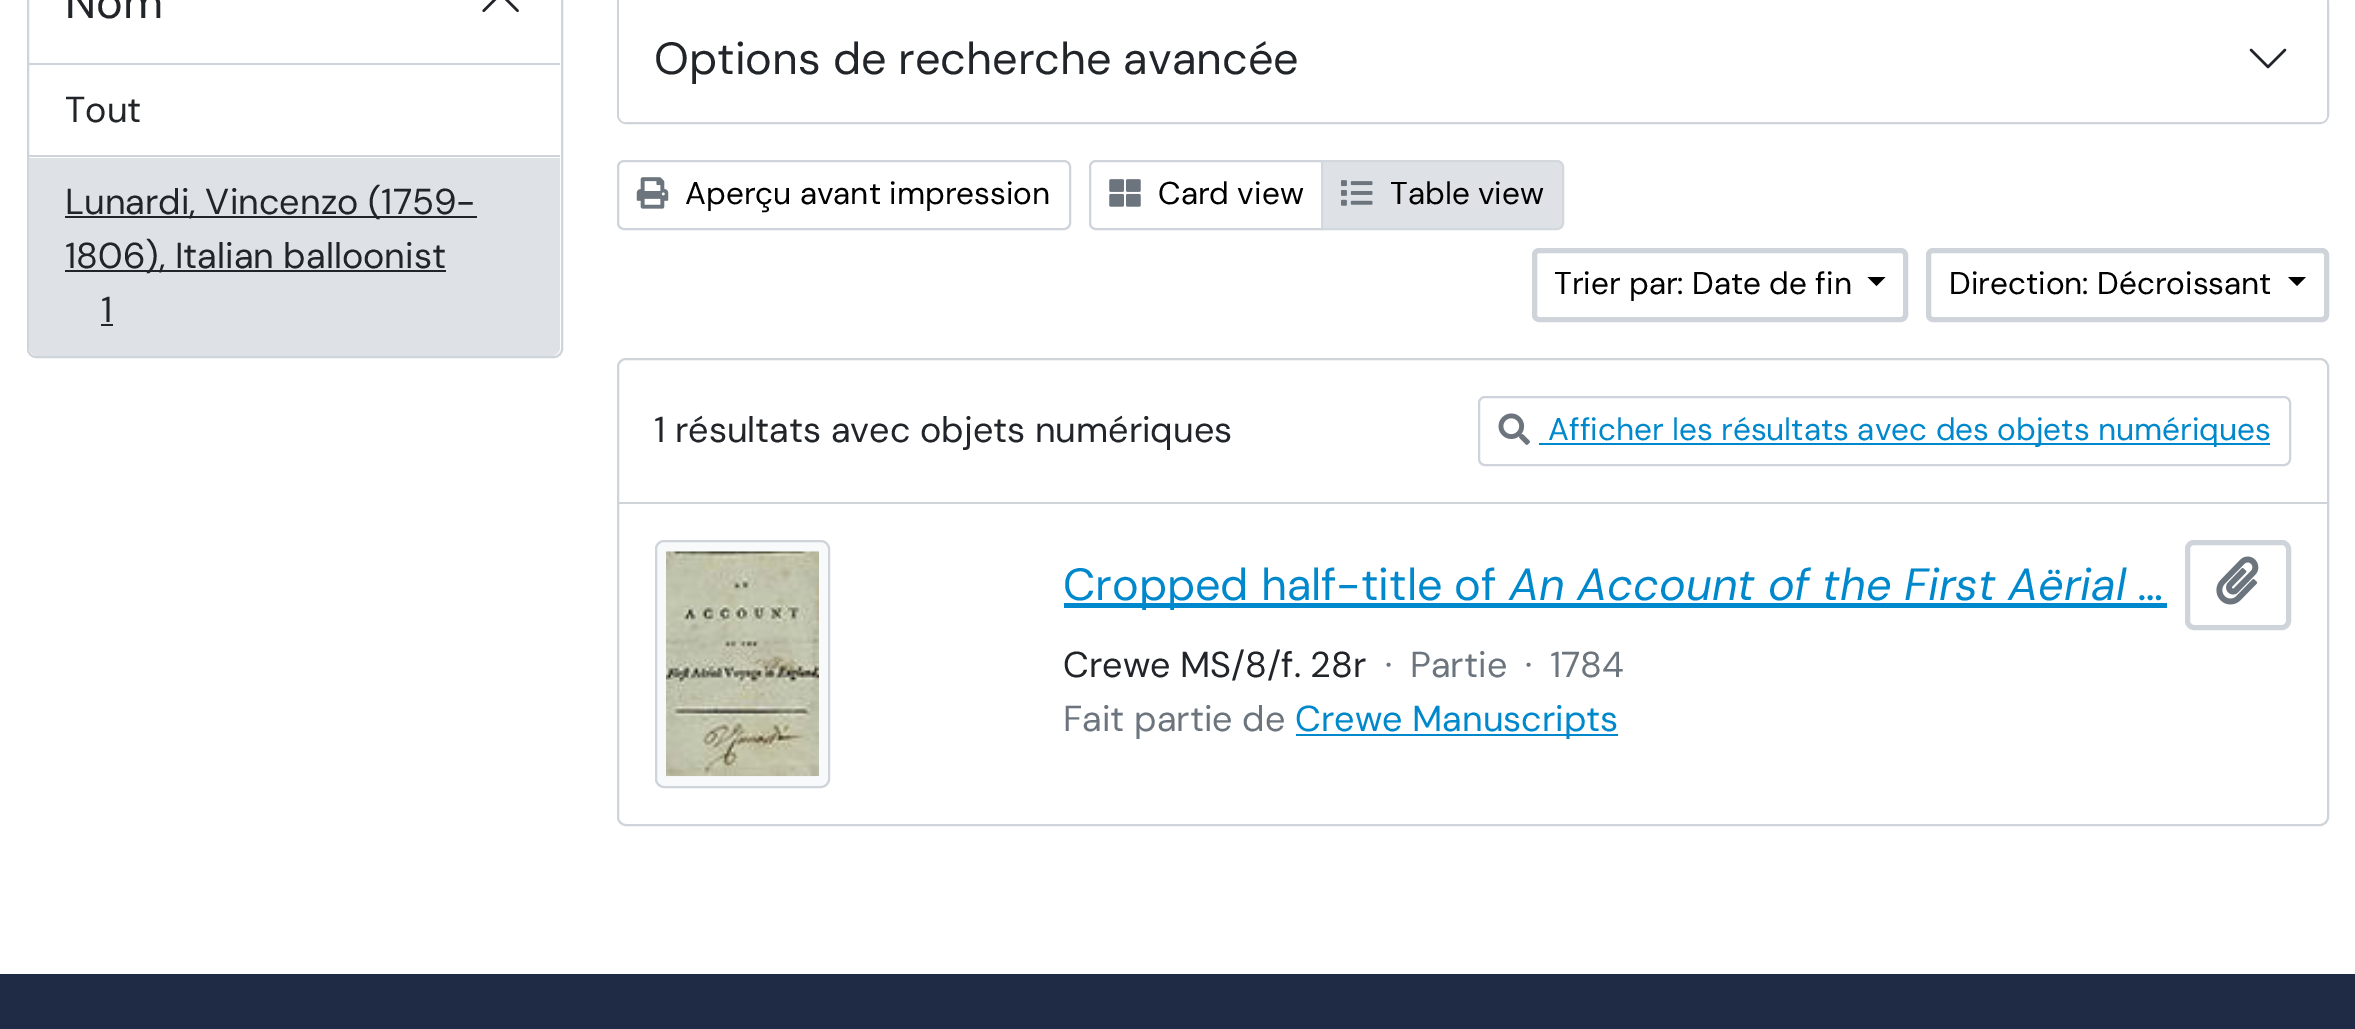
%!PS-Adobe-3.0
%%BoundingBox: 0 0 2355 1029
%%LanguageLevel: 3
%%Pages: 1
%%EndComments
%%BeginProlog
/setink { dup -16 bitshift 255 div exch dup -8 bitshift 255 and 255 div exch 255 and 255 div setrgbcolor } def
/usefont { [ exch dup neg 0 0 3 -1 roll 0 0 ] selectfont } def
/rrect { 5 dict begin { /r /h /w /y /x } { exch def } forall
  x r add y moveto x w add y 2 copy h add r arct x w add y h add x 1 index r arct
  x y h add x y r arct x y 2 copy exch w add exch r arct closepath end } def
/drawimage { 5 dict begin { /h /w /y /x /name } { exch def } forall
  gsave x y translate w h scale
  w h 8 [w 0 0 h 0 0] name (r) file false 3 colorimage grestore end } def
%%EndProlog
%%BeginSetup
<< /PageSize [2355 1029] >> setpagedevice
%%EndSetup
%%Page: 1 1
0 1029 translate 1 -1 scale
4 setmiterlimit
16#FFFFFF setink
0 0 2355 1029 rectfill
16#CED4DA setink
2 setlinewidth
28 -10 534 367 8 rrect stroke
29 63 531 2 rectfill
/DMSans-Regular 45 usefont
16#212529 setink
65 18 moveto (Nom) show
(img1.raw) 482 0 37 13 drawimage
16#CED4DA setink
29 155 531 2 rectfill
/DMSans-Regular 36 usefont
16#212529 setink
65 122 moveto (Tout) show
16#DEE2E6 setink
29 158 moveto 560 158 lineto 560 347 lineto 560 352 556 356 551 356 curveto 38 356 lineto 33 356 29 352 29 347 curveto closepath fill
16#212529 setink
65 216 412 2 rectfill
65 214 moveto (Lunardi, Vincenzo \(1759-) show
65 270 381 2 rectfill
65 268 moveto (1806\), Italian balloonist) show
101 322 moveto (1) show
101 324 12 2 rectfill
16#CED4DA setink
618 -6 1710 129 8 rrect stroke
16#FFFFFF setink
619 -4 1708 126 7 rrect fill
/DMSans-Regular 45 usefont
16#212529 setink
654 74 moveto (Options de recherche avancée) show
(img2.raw) 2249 48 38 21 drawimage
16#CED4DA setink
618 161 452 68 6 rrect stroke
(img3.raw) 636 177 33 32 drawimage
/DMSans-Regular 31.5 usefont
16#000000 setink
685 204 moveto (Aperçu avant impression) show
16#CED4DA setink
1096 161 moveto 1322 161 lineto 1322 229 lineto 1096 229 lineto 1092.5 229 1090 226.5 1090 223 curveto 1090 167 lineto 1090 163.5 1092.5 161 1096 161 curveto closepath stroke
(img4.raw) 1109 179 32 28 drawimage
16#000000 setink
1158 204 moveto (Card view) show
16#DEE2E6 setink
1322 161 moveto 1557 161 lineto 1560.5 161 1563 163.5 1563 167 curveto 1563 223 lineto 1563 226.5 1560.5 229 1557 229 curveto 1322 229 lineto closepath gsave fill grestore
16#D3D8DE setink
stroke
(img5.raw) 1341 180 32 26 drawimage
16#000000 setink
1390 204 moveto (Table view) show
16#CED4DA setink
5 setlinewidth
1534.5 250.5 371 69 4.5 rrect stroke
16#000000 setink
1554 294 moveto (Trier par: Date de fin) show
1867.5 277 moveto 1885.5 277 lineto 1876.5 286 lineto closepath fill
16#CED4DA setink
1928.5 250.5 398 69 4.5 rrect stroke
16#000000 setink
1949 294 moveto (Direction: Décroissant) show
2288 277 moveto 2306 277 lineto 2297 286 lineto closepath fill
16#CED4DA setink
2 setlinewidth
618 359 1710 466 8 rrect stroke
619 502 1708 2 rectfill
/DMSans-Regular 36 usefont
16#212529 setink
654 442 moveto (1 résultats avec objets numériques) show
16#CED4DA setink
1479 397 811 68 6 rrect stroke
(img6.raw) 1498 413 32 32 drawimage
16#0088CC setink
1539 443 731 2 rectfill
/DMSans-Regular 31.5 usefont
1548 440 moveto (Afficher les résultats avec des objets numériques) show
16#F8F9FA setink
656 541 173 246 8 rrect gsave fill grestore
16#CED4DA setink
stroke
(img7.raw) 666 551 153 226 drawimage
16#0088CC setink
1064 603 1103 5 rectfill
/DMSans-Regular 45 usefont
1063 600 moveto (Cropped half-title of) show
/DMSans-Italic 45 usefont
1509 600 moveto (An Account of the First Aërial …) show
16#CED4DA setink
5 setlinewidth
2187.5 542.5 101 85 6.5 rrect stroke
(img8.raw) 2216 556 43 49 drawimage
/DMSans-Regular 36 usefont
16#212529 setink
1063 677 moveto (Crewe MS/8/f. 28r) show
16#6C757D setink
[
    [(·) 1385 677]
    [(Partie) 1410 677]
    [(·) 1525 677]
    [(1784) 1550 677]
    [(Fait partie de) 1063 731]
] { aload pop moveto show } forall
16#0088CC setink
1296 734 322 2 rectfill
1295 731 moveto (Crewe Manuscripts) show
16#1F2A44 setink
0 974 2355 55 rectfill
showpage
%%EOF
